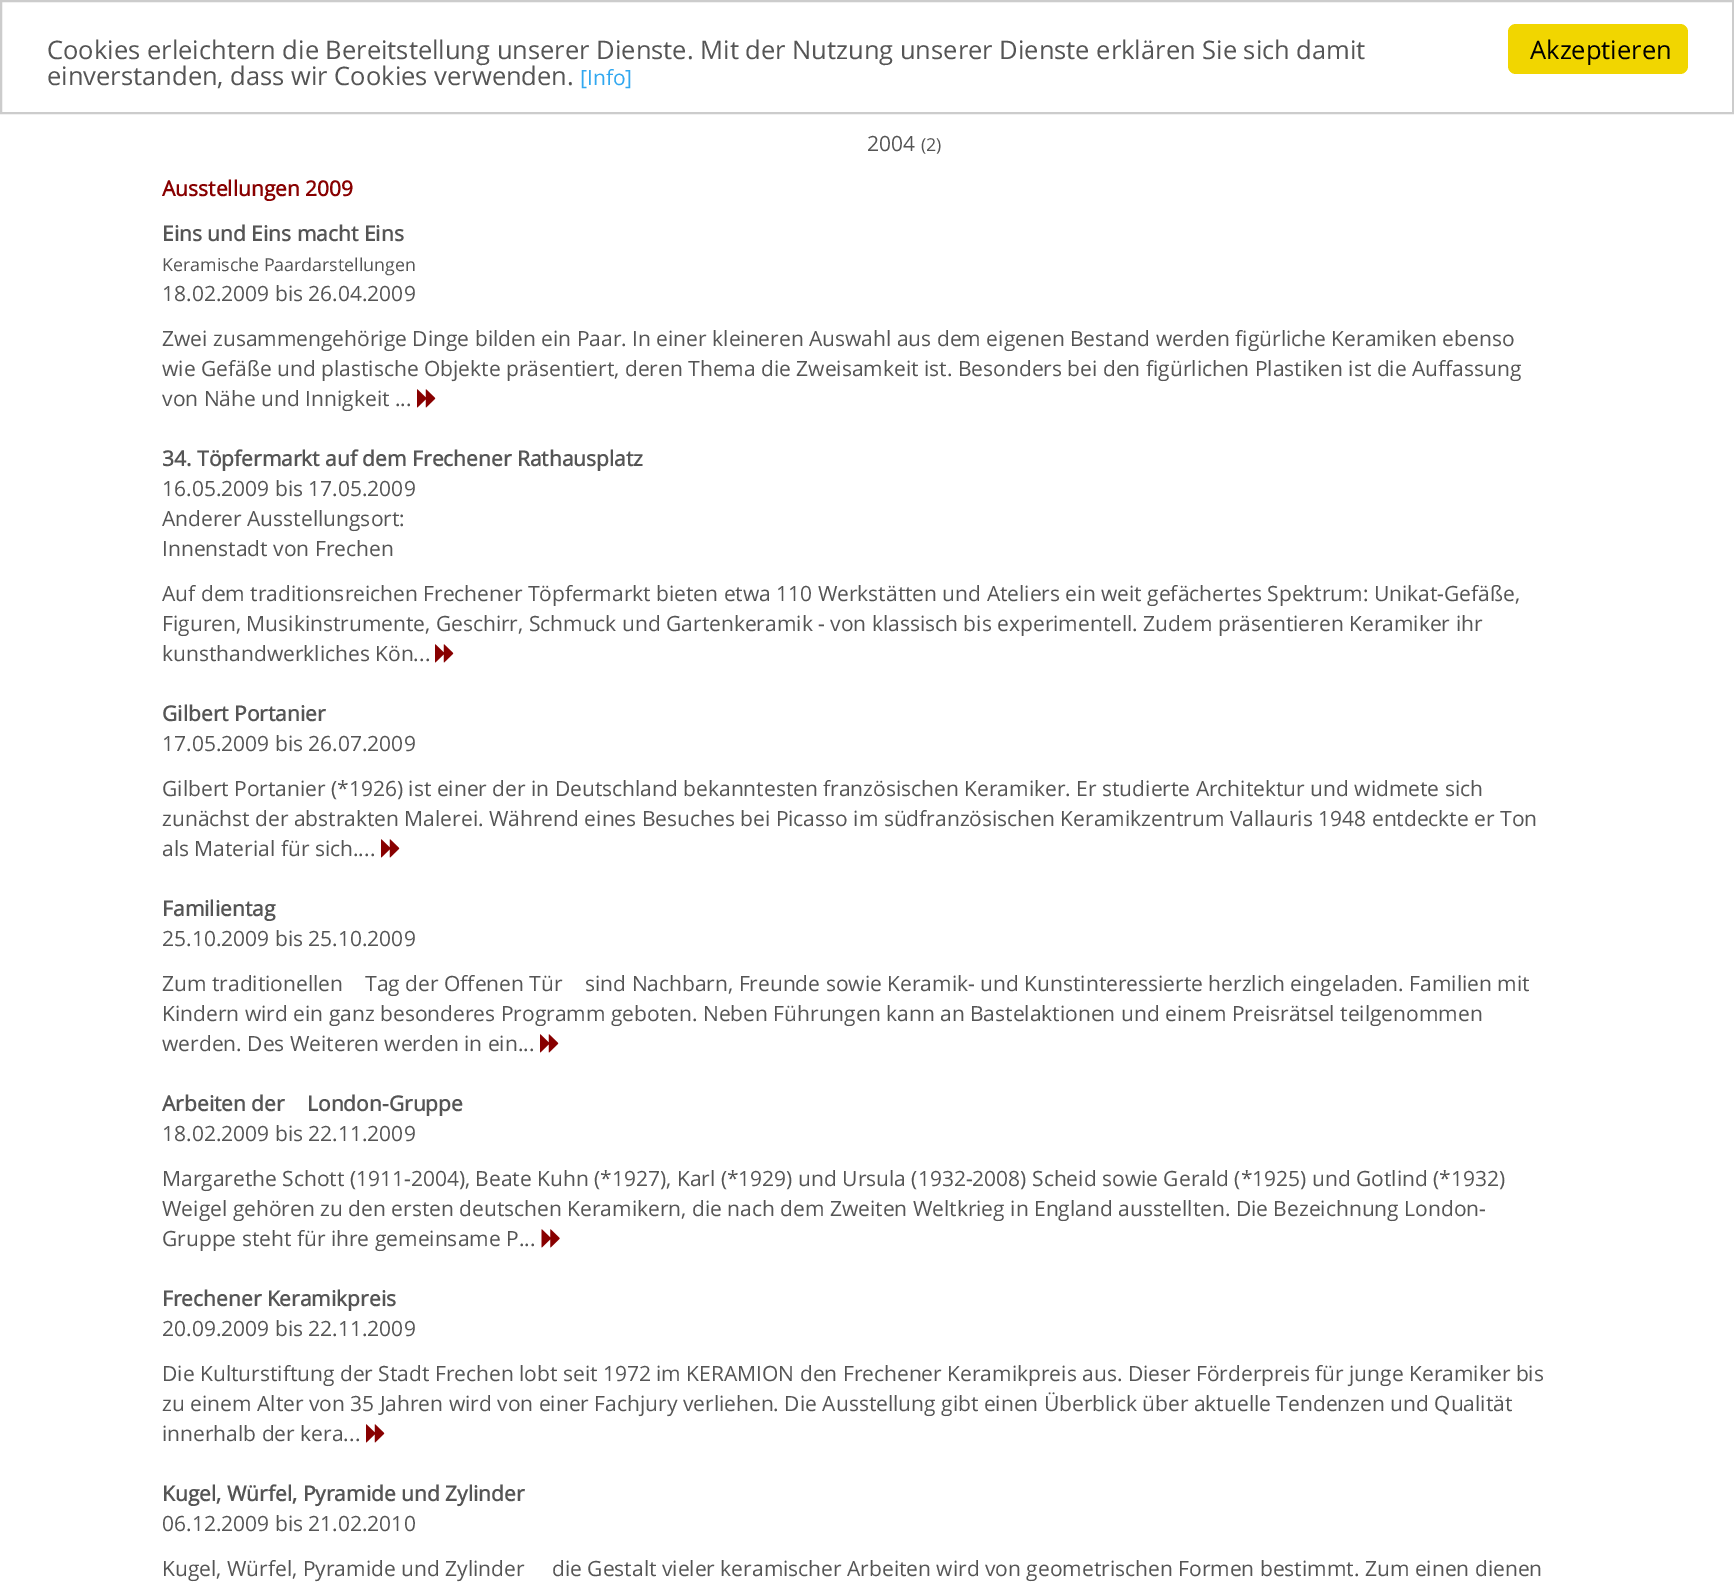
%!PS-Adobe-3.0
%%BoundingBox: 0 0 1734 1586
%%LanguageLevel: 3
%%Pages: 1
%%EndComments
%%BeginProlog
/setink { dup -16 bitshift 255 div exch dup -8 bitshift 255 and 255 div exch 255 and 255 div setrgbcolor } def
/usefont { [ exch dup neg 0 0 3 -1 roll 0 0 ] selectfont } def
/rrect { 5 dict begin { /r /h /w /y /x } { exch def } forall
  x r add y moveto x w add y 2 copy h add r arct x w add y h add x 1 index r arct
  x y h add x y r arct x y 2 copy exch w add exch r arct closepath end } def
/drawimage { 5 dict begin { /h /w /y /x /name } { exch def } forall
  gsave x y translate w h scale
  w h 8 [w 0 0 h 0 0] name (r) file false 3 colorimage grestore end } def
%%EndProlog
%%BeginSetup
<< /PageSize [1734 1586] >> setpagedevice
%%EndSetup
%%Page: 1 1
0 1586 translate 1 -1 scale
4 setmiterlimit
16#FFFFFF setink
0 0 1734 1586 rectfill
16#CCCCCC setink
2 setlinewidth
1 1 1732 112 rectstroke
/OpenSans-Regular 25.5 usefont
16#555555 setink
47 59 moveto (Cookies erleichtern die Bereitstellung unserer Dienste. Mit der Nutzung unserer Dienste erklären Sie sich damit) show
47 85 moveto (einverstanden, dass wir Cookies verwenden.) show
/OpenSans-Regular 21 usefont
16#31A8F0 setink
580 85 moveto ([Info]) show
16#F1D600 setink
1508 24 180 50 8 rrect fill
/OpenSans-Regular 25.5 usefont
16#000000 setink
1530 59 moveto (Akzeptieren) show
/OpenSans-Regular 21 usefont
16#555555 setink
867 151 moveto (2004) show
/OpenSans-Regular 17.8 usefont
921 151 moveto (\(2\)) show
/OpenSans-Bold 21 usefont
16#880000 setink
162 196 moveto (Ausstellungen 2009) show
16#555555 setink
162 241 moveto (Eins und Eins macht Eins) show
/OpenSans-Regular 17.8 usefont
162 271 moveto (Keramische Paardarstellungen) show
/OpenSans-Regular 21 usefont
[
    [(18.02.2009 bis 26.04.2009) 162 301]
    [(Zwei zusammengehörige Dinge bilden ein Paar. In einer kleineren Auswahl aus dem eigenen Bestand werden figürliche Keramiken ebenso) 162 346]
    [(wie Gefäße und plastische Objekte präsentiert, deren Thema die Zweisamkeit ist. Besonders bei den figürlichen Plastiken ist die Auffassung) 162 376]
    [(von Nähe und Innigkeit ...) 162 406]
] { aload pop moveto show } forall
(img1.raw) 417 389 19 19 drawimage
/OpenSans-Bold 21 usefont
162 466 moveto (34. Töpfermarkt auf dem Frechener Rathausplatz) show
/OpenSans-Regular 21 usefont
[
    [(16.05.2009 bis 17.05.2009) 162 496]
    [(Anderer Ausstellungsort:) 162 526]
    [(Innenstadt von Frechen) 162 556]
    [(Auf dem traditionsreichen Frechener Töpfermarkt bieten etwa 110 Werkstätten und Ateliers ein weit gefächertes Spektrum: Unikat-Gefäße,) 162 601]
    [(Figuren, Musikinstrumente, Geschirr, Schmuck und Gartenkeramik - von klassisch bis experimentell. Zudem präsentieren Keramiker ihr) 162 631]
    [(kunsthandwerkliches Kön...) 162 661]
] { aload pop moveto show } forall
(img1.raw) 435 644 19 19 drawimage
/OpenSans-Bold 21 usefont
162 721 moveto (Gilbert Portanier) show
/OpenSans-Regular 21 usefont
[
    [(17.05.2009 bis 26.07.2009) 162 751]
    [(Gilbert Portanier \(*1926\) ist einer der in Deutschland bekanntesten französischen Keramiker. Er studierte Architektur und widmete sich) 162 796]
    [(zunächst der abstrakten Malerei. Während eines Besuches bei Picasso im südfranzösischen Keramikzentrum Vallauris 1948 entdeckte er Ton) 162 826]
    [(als Material für sich....) 162 856]
] { aload pop moveto show } forall
(img1.raw) 381 839 19 19 drawimage
/OpenSans-Bold 21 usefont
162 916 moveto (Familientag) show
/OpenSans-Regular 21 usefont
[
    [(25.10.2009 bis 25.10.2009) 162 946]
    [(Zum traditionellen) 162 991]
    [(Tag der Offenen Tür) 365 991]
    [(sind Nachbarn, Freunde sowie Keramik- und Kunstinteressierte herzlich eingeladen. Familien mit) 585 991]
    [(Kindern wird ein ganz besonderes Programm geboten. Neben Führungen kann an Bastelaktionen und einem Preisrätsel teilgenommen) 162 1021]
    [(werden. Des Weiteren werden in ein...) 162 1051]
] { aload pop moveto show } forall
(img1.raw) 540 1034 19 19 drawimage
/OpenSans-Bold 21 usefont
162 1111 moveto (Arbeiten der) show
307 1111 moveto (London-Gruppe) show
/OpenSans-Regular 21 usefont
[
    [(18.02.2009 bis 22.11.2009) 162 1141]
    [(Margarethe Schott \(1911-2004\), Beate Kuhn \(*1927\), Karl \(*1929\) und Ursula \(1932-2008\) Scheid sowie Gerald \(*1925\) und Gotlind \(*1932\)) 162 1186]
    [(Weigel gehören zu den ersten deutschen Keramikern, die nach dem Zweiten Weltkrieg in England ausstellten. Die Bezeichnung London-) 162 1216]
    [(Gruppe steht für ihre gemeinsame P...) 162 1246]
] { aload pop moveto show } forall
(img2.raw) 541 1229 19 19 drawimage
/OpenSans-Bold 21 usefont
162 1306 moveto (Frechener Keramikpreis) show
/OpenSans-Regular 21 usefont
[
    [(20.09.2009 bis 22.11.2009) 162 1336]
    [(Die Kulturstiftung der Stadt Frechen lobt seit 1972 im KERAMION den Frechener Keramikpreis aus. Dieser Förderpreis für junge Keramiker bis) 162 1381]
    [(zu einem Alter von 35 Jahren wird von einer Fachjury verliehen. Die Ausstellung gibt einen Überblick über aktuelle Tendenzen und Qualität) 162 1411]
    [(innerhalb der kera...) 162 1441]
] { aload pop moveto show } forall
(img1.raw) 366 1424 19 19 drawimage
/OpenSans-Bold 21 usefont
162 1501 moveto (Kugel, Würfel, Pyramide und Zylinder) show
/OpenSans-Regular 21 usefont
[
    [(06.12.2009 bis 21.02.2010) 162 1531]
    [(Kugel, Würfel, Pyramide und Zylinder) 162 1576]
    [(die Gestalt vieler keramischer Arbeiten wird von geometrischen Formen bestimmt. Zum einen dienen) 552 1576]
] { aload pop moveto show } forall
showpage
%%EOF
